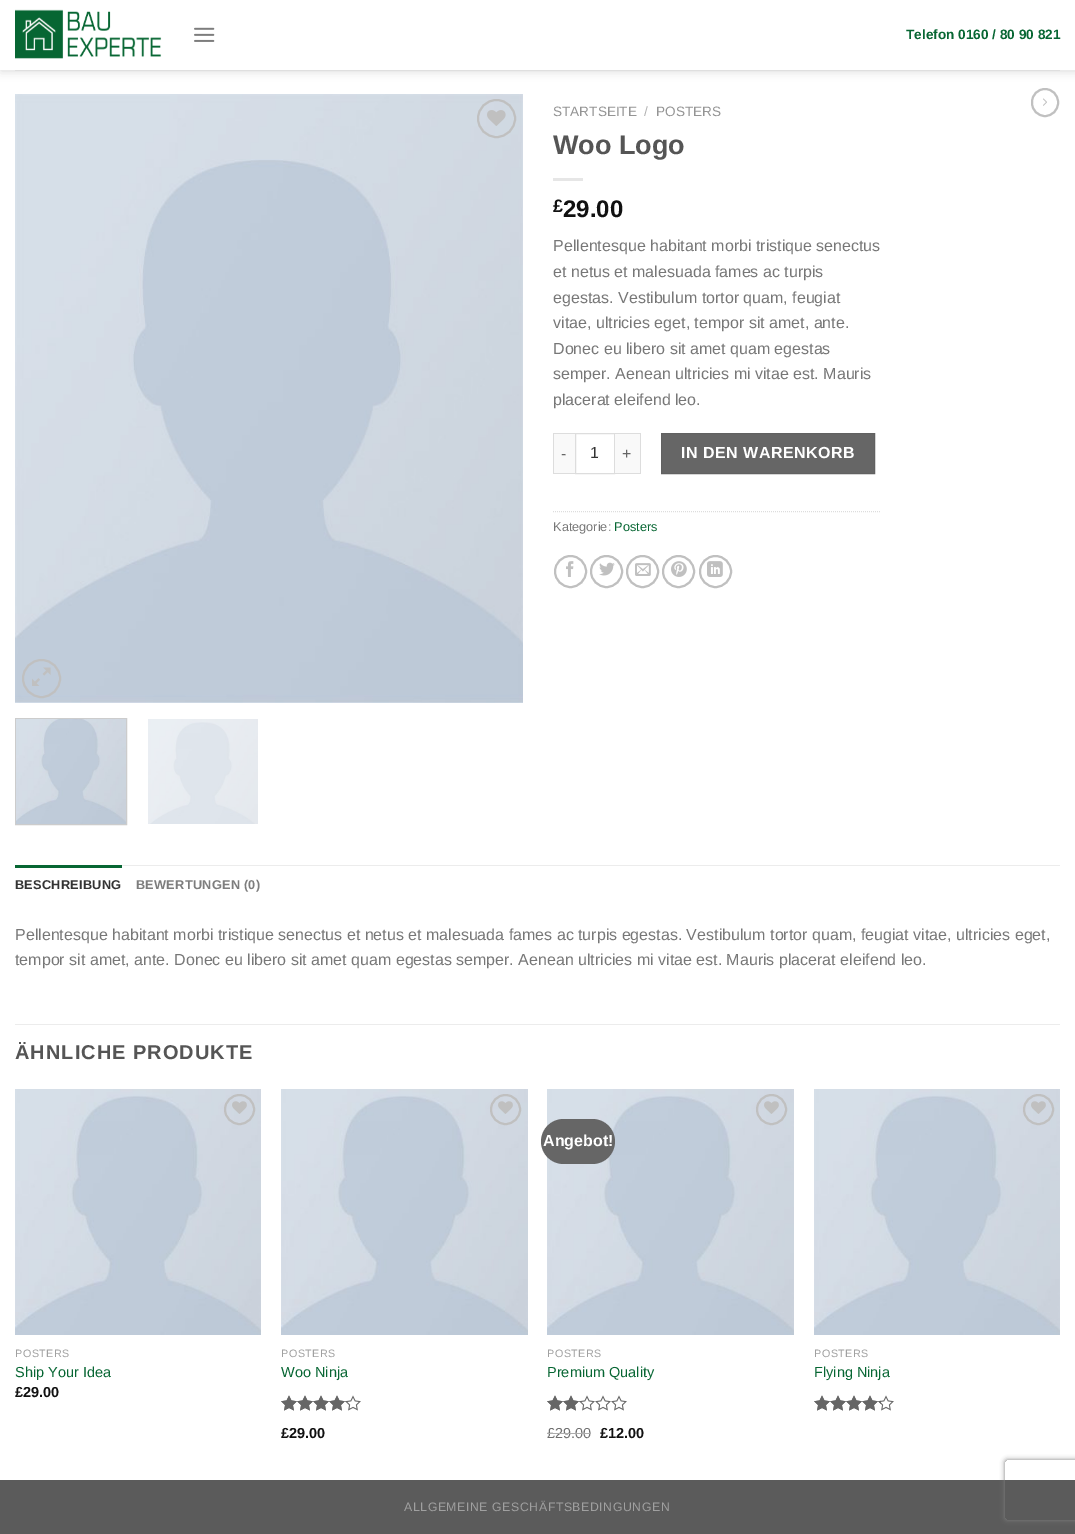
%!PS-Adobe-3.0
%%BoundingBox: 0 0 1075 1534
%%LanguageLevel: 3
%%Pages: 1
%%EndComments
%%BeginProlog
/setink { dup -16 bitshift 255 div exch dup -8 bitshift 255 and 255 div exch 255 and 255 div setrgbcolor } def
/usefont { [ exch dup neg 0 0 3 -1 roll 0 0 ] selectfont } def
/setalpha { dup .setfillconstantalpha .setstrokeconstantalpha } def
/disc { newpath 0 360 arc closepath } def
/rrect { 5 dict begin { /r /h /w /y /x } { exch def } forall
  x r add y moveto x w add y 2 copy h add r arct x w add y h add x 1 index r arct
  x y h add x y r arct x y 2 copy exch w add exch r arct closepath end } def
/softshadow { 12 dict begin { /a /b /q /h /w /y /x } { exch def } forall gsave /was 0 def
  9 -2 -9 { dup b mul 4 div /e exch def 1 sub .425 mul 2.718 exch exp 1 add a .99 .min exch div /now exch def
    1 1 now sub 1 was sub div sub setalpha /was now def
    w h .min e 2 mul add 0 gt { x e sub y e sub w e 2 mul add h e 2 mul add
      q e add b .6 mul add w h .min 2 div e add .min 0 .max rrect fill } if } for grestore end } def
/drawimage { 5 dict begin { /h /w /y /x /name } { exch def } forall
  gsave x y translate w h scale
  w h 8 [w 0 0 h 0 0] name (r) file false 3 colorimage grestore end } def
%%EndProlog
%%BeginSetup
<< /PageSize [1075 1534] /PageUsesTransparency true >> setpagedevice
%%EndSetup
%%Page: 1 1
0 .pushpdf14devicefilter
0 1534 translate 1 -1 scale
4 setmiterlimit
16#FFFFFF setink
0 0 1075 1534 rectfill
16#000000 setink
1 1 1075 70 0 5 0.15 softshadow
16#FFFFFF setink
0 0 1075 70 rectfill
(img1.raw) 15 9 147 50 drawimage
(img2.raw) 194 27 21 15 drawimage
/LiberationSans-Bold 13.6 usefont
16#076633 setink
906 39 moveto (Telefon 0160 / 80 90 821) show
16#DFDFDF setink
15 70 1045 1 rectfill
(img3.raw) 15 94 508 609 drawimage
16#C0C0C0 setink
2 setlinewidth
496.5 118.5 18.5 disc stroke
(img4.raw) 487 110 19 16 drawimage
41.5 678.5 18.5 disc stroke
(img5.raw) 32 667 19 19 drawimage
16#CCCCCC setink
1 setlinewidth
15.5 718.5 111 106 rectstroke
(img6.raw) 16 719 110 105 drawimage
(img7.raw) 148 719 110 105 drawimage
/LiberationSans-Regular 13.6 usefont
16#949494 setink
553 116 moveto (STARTSEITE) show
16#B2B2B2 setink
644 116 moveto (/) show
16#949494 setink
656 116 moveto (POSTERS) show
/LiberationSans-Bold 27 usefont
16#555555 setink
553 154 moveto (Woo Logo) show
16#E6E6E6 setink
553 178 30 3 rectfill
/LiberationSans-Bold 18 usefont
16#111111 setink
553 212 moveto (£) show
/LiberationSans-Bold 24 usefont
563 217 moveto (29.00) show
/LiberationSans-Regular 16 usefont
16#777777 setink
[
    [(Pellentesque habitant morbi tristique senectus) 553 251]
    [(et netus et malesuada fames ac turpis) 553 277]
    [(egestas. Vestibulum tortor quam, feugiat) 553 303]
    [(vitae, ultricies eget, tempor sit amet, ante.) 553 328]
    [(Donec eu libero sit amet quam egestas) 553 354]
    [(semper. Aenean ultricies mi vitae est. Mauris) 553 379]
    [(placerat eleifend leo.) 553 405]
] { aload pop moveto show } forall
[
    [554 434 21 39 16#F9F9F9]
    [553 433 22 1 16#DDDDDD]
    [553 473 22 1 16#DDDDDD]
    [553 433 1 41 16#DDDDDD]
] { aload pop setink rectfill } forall
16#666666 setink
561 459 moveto (-) show
16#DDDDDD setink
575.5 433.5 39 40 rectstroke
16#333333 setink
590 458 moveto (1) show
[
    [615 434 25 39 16#F9F9F9]
    [615 433 26 1 16#DDDDDD]
    [640 433 1 41 16#DDDDDD]
    [615 473 26 1 16#DDDDDD]
] { aload pop setink rectfill } forall
16#666666 setink
622 459 moveto (+) show
661.5 433.5 moveto 874.5 433.5 lineto 874.5 473.5 lineto 661.5 473.5 lineto closepath gsave fill grestore
16#616161 setink
stroke
/LiberationSans-Bold 16 usefont
16#FFFFFF setink
681 458 moveto 0.5 0 (IN DEN WARENKORB) ashow
16#DDDDDD setink
[1 1] 0 setdash
553 511.5 moveto 881 511.5 lineto stroke
/LiberationSans-Regular 12.75 usefont
16#777777 setink
553 531 moveto (Kategorie:) show
16#076633 setink
614 531 moveto (Posters) show
16#C0C0C0 setink
2 setlinewidth
[] 0 setdash
570.5 571.5 15.5 disc stroke
(img8.raw) 566 561 8 16 drawimage
606.5 571.5 15.5 disc stroke
(img9.raw) 599 562 16 14 drawimage
642.5 571.5 15.5 disc stroke
(img10.raw) 635 563 16 13 drawimage
678.5 571.5 15.5 disc stroke
(img11.raw) 671 561 16 16 drawimage
715.5 571.5 15.5 disc stroke
(img12.raw) 707 561 16 16 drawimage
1032 89 26 27 13 rrect stroke
(img13.raw) 1043 98 4 8 drawimage
16#ECECEC setink
122 865 938 1 rectfill
16#076633 setink
15 865 107 3 rectfill
/LiberationSans-Bold 12.75 usefont
16#333333 setink
15 889 moveto 0.25 0 (BESCHREIBUNG) ashow
16#7D7D7D setink
136 889 moveto 0.25 0 (BEWERTUNGEN \(0\)) ashow
/LiberationSans-Regular 16 usefont
16#777777 setink
15 940 moveto (Pellentesque habitant morbi tristique senectus et netus et malesuada fames ac turpis egestas. Vestibulum tortor quam, feugiat vitae, ultricies eget,) show
15 965 moveto (tempor sit amet, ante. Donec eu libero sit amet quam egestas semper. Aenean ultricies mi vitae est. Mauris placerat eleifend leo.) show
16#ECECEC setink
15 1024 1045 1 rectfill
/LiberationSans-Bold 20 usefont
16#555555 setink
15 1059 moveto 1 0 (ÄHNLICHE PRODUKTE) ashow
(img14.raw) 15 1089 246 246 drawimage
16#C0C0C0 setink
239.5 1109.5 14.5 disc stroke
(img15.raw) 232 1101 15 13 drawimage
/LiberationSans-Regular 10.75 usefont
16#A0A0A0 setink
15 1357 moveto 0.5 0 (POSTERS) ashow
/LiberationSans-Regular 14.5 usefont
16#076633 setink
15 1377 moveto (Ship Your Idea) show
/LiberationSans-Bold 14.5 usefont
16#111111 setink
15 1397 moveto (£29.00) show
(img16.raw) 281 1089 247 246 drawimage
16#C0C0C0 setink
505.5 1109.5 14.5 disc stroke
(img17.raw) 498 1101 15 13 drawimage
/LiberationSans-Regular 10.75 usefont
16#A0A0A0 setink
281 1357 moveto 0.5 0 (POSTERS) ashow
/LiberationSans-Regular 14.5 usefont
16#076633 setink
281 1377 moveto (Woo Ninja) show
(img18.raw) 281 1395 80 16 drawimage
(img19.raw) 281 1395 65 16 drawimage
/LiberationSans-Bold 14.5 usefont
16#111111 setink
281 1438 moveto (£29.00) show
(img16.raw) 547 1089 247 246 drawimage
16#666666 setink
541 1119 74 45 22.5 rrect fill
/LiberationSans-Bold 16 usefont
16#FFFFFF setink
543 1146 moveto (Angebot!) show
16#C0C0C0 setink
771.5 1109.5 14.5 disc stroke
(img17.raw) 764 1101 15 13 drawimage
/LiberationSans-Regular 10.75 usefont
16#A0A0A0 setink
547 1357 moveto 0.5 0 (POSTERS) ashow
/LiberationSans-Regular 14.5 usefont
16#076633 setink
547 1377 moveto (Premium Quality) show
(img18.raw) 547 1395 80 16 drawimage
(img20.raw) 547 1395 33 16 drawimage
16#707070 setink
547 1438 moveto (£29.00) show
16#ADADAD setink
547 1433 44 1 rectfill
/LiberationSans-Bold 14.5 usefont
16#111111 setink
600 1438 moveto (£12.00) show
(img14.raw) 814 1089 246 246 drawimage
16#C0C0C0 setink
1038.5 1109.5 14.5 disc stroke
(img15.raw) 1031 1101 15 13 drawimage
/LiberationSans-Regular 10.75 usefont
16#A0A0A0 setink
814 1357 moveto 0.5 0 (POSTERS) ashow
/LiberationSans-Regular 14.5 usefont
16#076633 setink
814 1377 moveto (Flying Ninja) show
(img18.raw) 814 1395 80 16 drawimage
(img21.raw) 814 1395 67 16 drawimage
16#5B5B5B setink
0 1480 1075 54 rectfill
/LiberationSans-Regular 12.25 usefont
16#A0A0A0 setink
404 1511 moveto 0.6 0 (ALLGEMEINE GESCHÄFTSBEDINGUNGEN) ashow
gsave
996 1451 moveto 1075 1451 lineto 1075 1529 lineto 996 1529 lineto closepath 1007 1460 moveto 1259 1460 lineto 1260 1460 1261 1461 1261 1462 curveto 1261 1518 lineto 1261 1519 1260 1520 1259 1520 curveto 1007 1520 lineto 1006 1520 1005 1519 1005 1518 curveto 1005 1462 lineto 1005 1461 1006 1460 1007 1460 curveto closepath eoclip newpath
16#808080 setink
1005 1460 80 60 2 2.5 1 softshadow
grestore
.poppdf14devicefilter showpage
%%EOF
